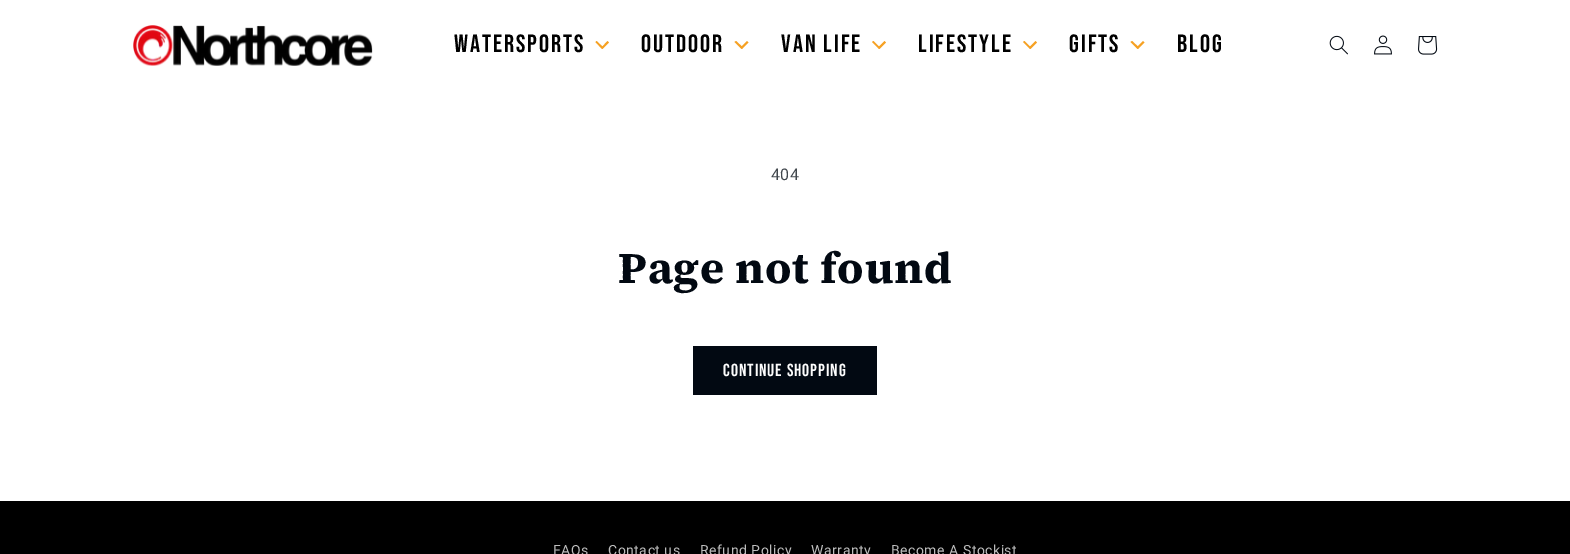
%!PS-Adobe-3.0
%%BoundingBox: 0 0 1570 554
%%LanguageLevel: 3
%%Pages: 1
%%EndComments
%%BeginProlog
/setink { dup -16 bitshift 255 div exch dup -8 bitshift 255 and 255 div exch 255 and 255 div setrgbcolor } def
/usefont { [ exch dup neg 0 0 3 -1 roll 0 0 ] selectfont } def
/drawimage { 5 dict begin { /h /w /y /x /name } { exch def } forall
  gsave x y translate w h scale
  w h 8 [w 0 0 h 0 0] name (r) file false 3 colorimage grestore end } def
%%EndProlog
%%BeginSetup
<< /PageSize [1570 554] >> setpagedevice
%%EndSetup
%%Page: 1 1
0 554 translate 1 -1 scale
4 setmiterlimit
16#FFFFFF setink
0 0 1570 554 rectfill
(img1.raw) 133 25 240 41 drawimage
/BebasNeue-Regular 25 usefont
16#000000 setink
454 52 moveto 2 0 (WATERSPORTS) ashow
16#F6A123 setink
607.5 41 moveto 609 42.5 lineto 602.5 49 lineto 601.5 47.5 lineto closepath fill
596.5 41 moveto 603.5 47.5 lineto 602 49 lineto 595.5 42 lineto closepath fill
16#000000 setink
641 52 moveto 2 0 (OUTDOOR) ashow
16#F6A123 setink
747 41 moveto 748.5 42.5 lineto 742 49 lineto 740.5 47.5 lineto closepath fill
736 41 moveto 743 47.5 lineto 741.5 49 lineto 734.5 42 lineto closepath fill
16#000000 setink
781 52 moveto 2 0 (VAN LIFE) ashow
16#F6A123 setink
884.5 41 moveto 886 42.5 lineto 879.5 49 lineto 878 47.5 lineto closepath fill
873.5 41 moveto 880 47.5 lineto 879 49 lineto 872 42 lineto closepath fill
16#000000 setink
918 52 moveto 2 0 (LIFESTYLE) ashow
16#F6A123 setink
1035.5 41 moveto 1037 42.5 lineto 1030.5 49 lineto 1029 47.5 lineto closepath fill
1024.5 41 moveto 1031 47.5 lineto 1030 49 lineto 1023 42 lineto closepath fill
16#000000 setink
1069 52 moveto 2 0 (GIFTS) ashow
16#F6A123 setink
1143 41 moveto 1144.5 42.5 lineto 1138 49 lineto 1136.5 47.5 lineto closepath fill
1132 41 moveto 1139 47.5 lineto 1137.5 49 lineto 1130.5 42 lineto closepath fill
16#000000 setink
1177 52 moveto 2 0 (Blog) ashow
(img2.raw) 1329 35 19 20 drawimage
(img3.raw) 1374 35 18 20 drawimage
(img4.raw) 1418 36 20 19 drawimage
/Roboto-Regular 16 usefont
16#41474D setink
771 180 moveto 0.5 0 (404) ashow
/SourceSerif4-Bold 44 usefont
16#020912 setink
618 283 moveto 0.7 0 (Page not found) ashow
693 346 184 49 rectfill
/BebasNeue-Regular 17.5 usefont
16#FCFCFC setink
723 376 moveto 1 0 (Continue shopping) ashow
16#000000 setink
0 501 1570 53 rectfill
/Roboto-Regular 14 usefont
16#BDBDBD setink
553 555 moveto 0.5 0 (FAQs) ashow
608 555 moveto 0.5 0 (Contact us) ashow
700 555 moveto 0.5 0 (Refund Policy) ashow
811 555 moveto 0.5 0 (Warranty) ashow
891 555 moveto 0.5 0 (Become A Stockist) ashow
showpage
%%EOF
